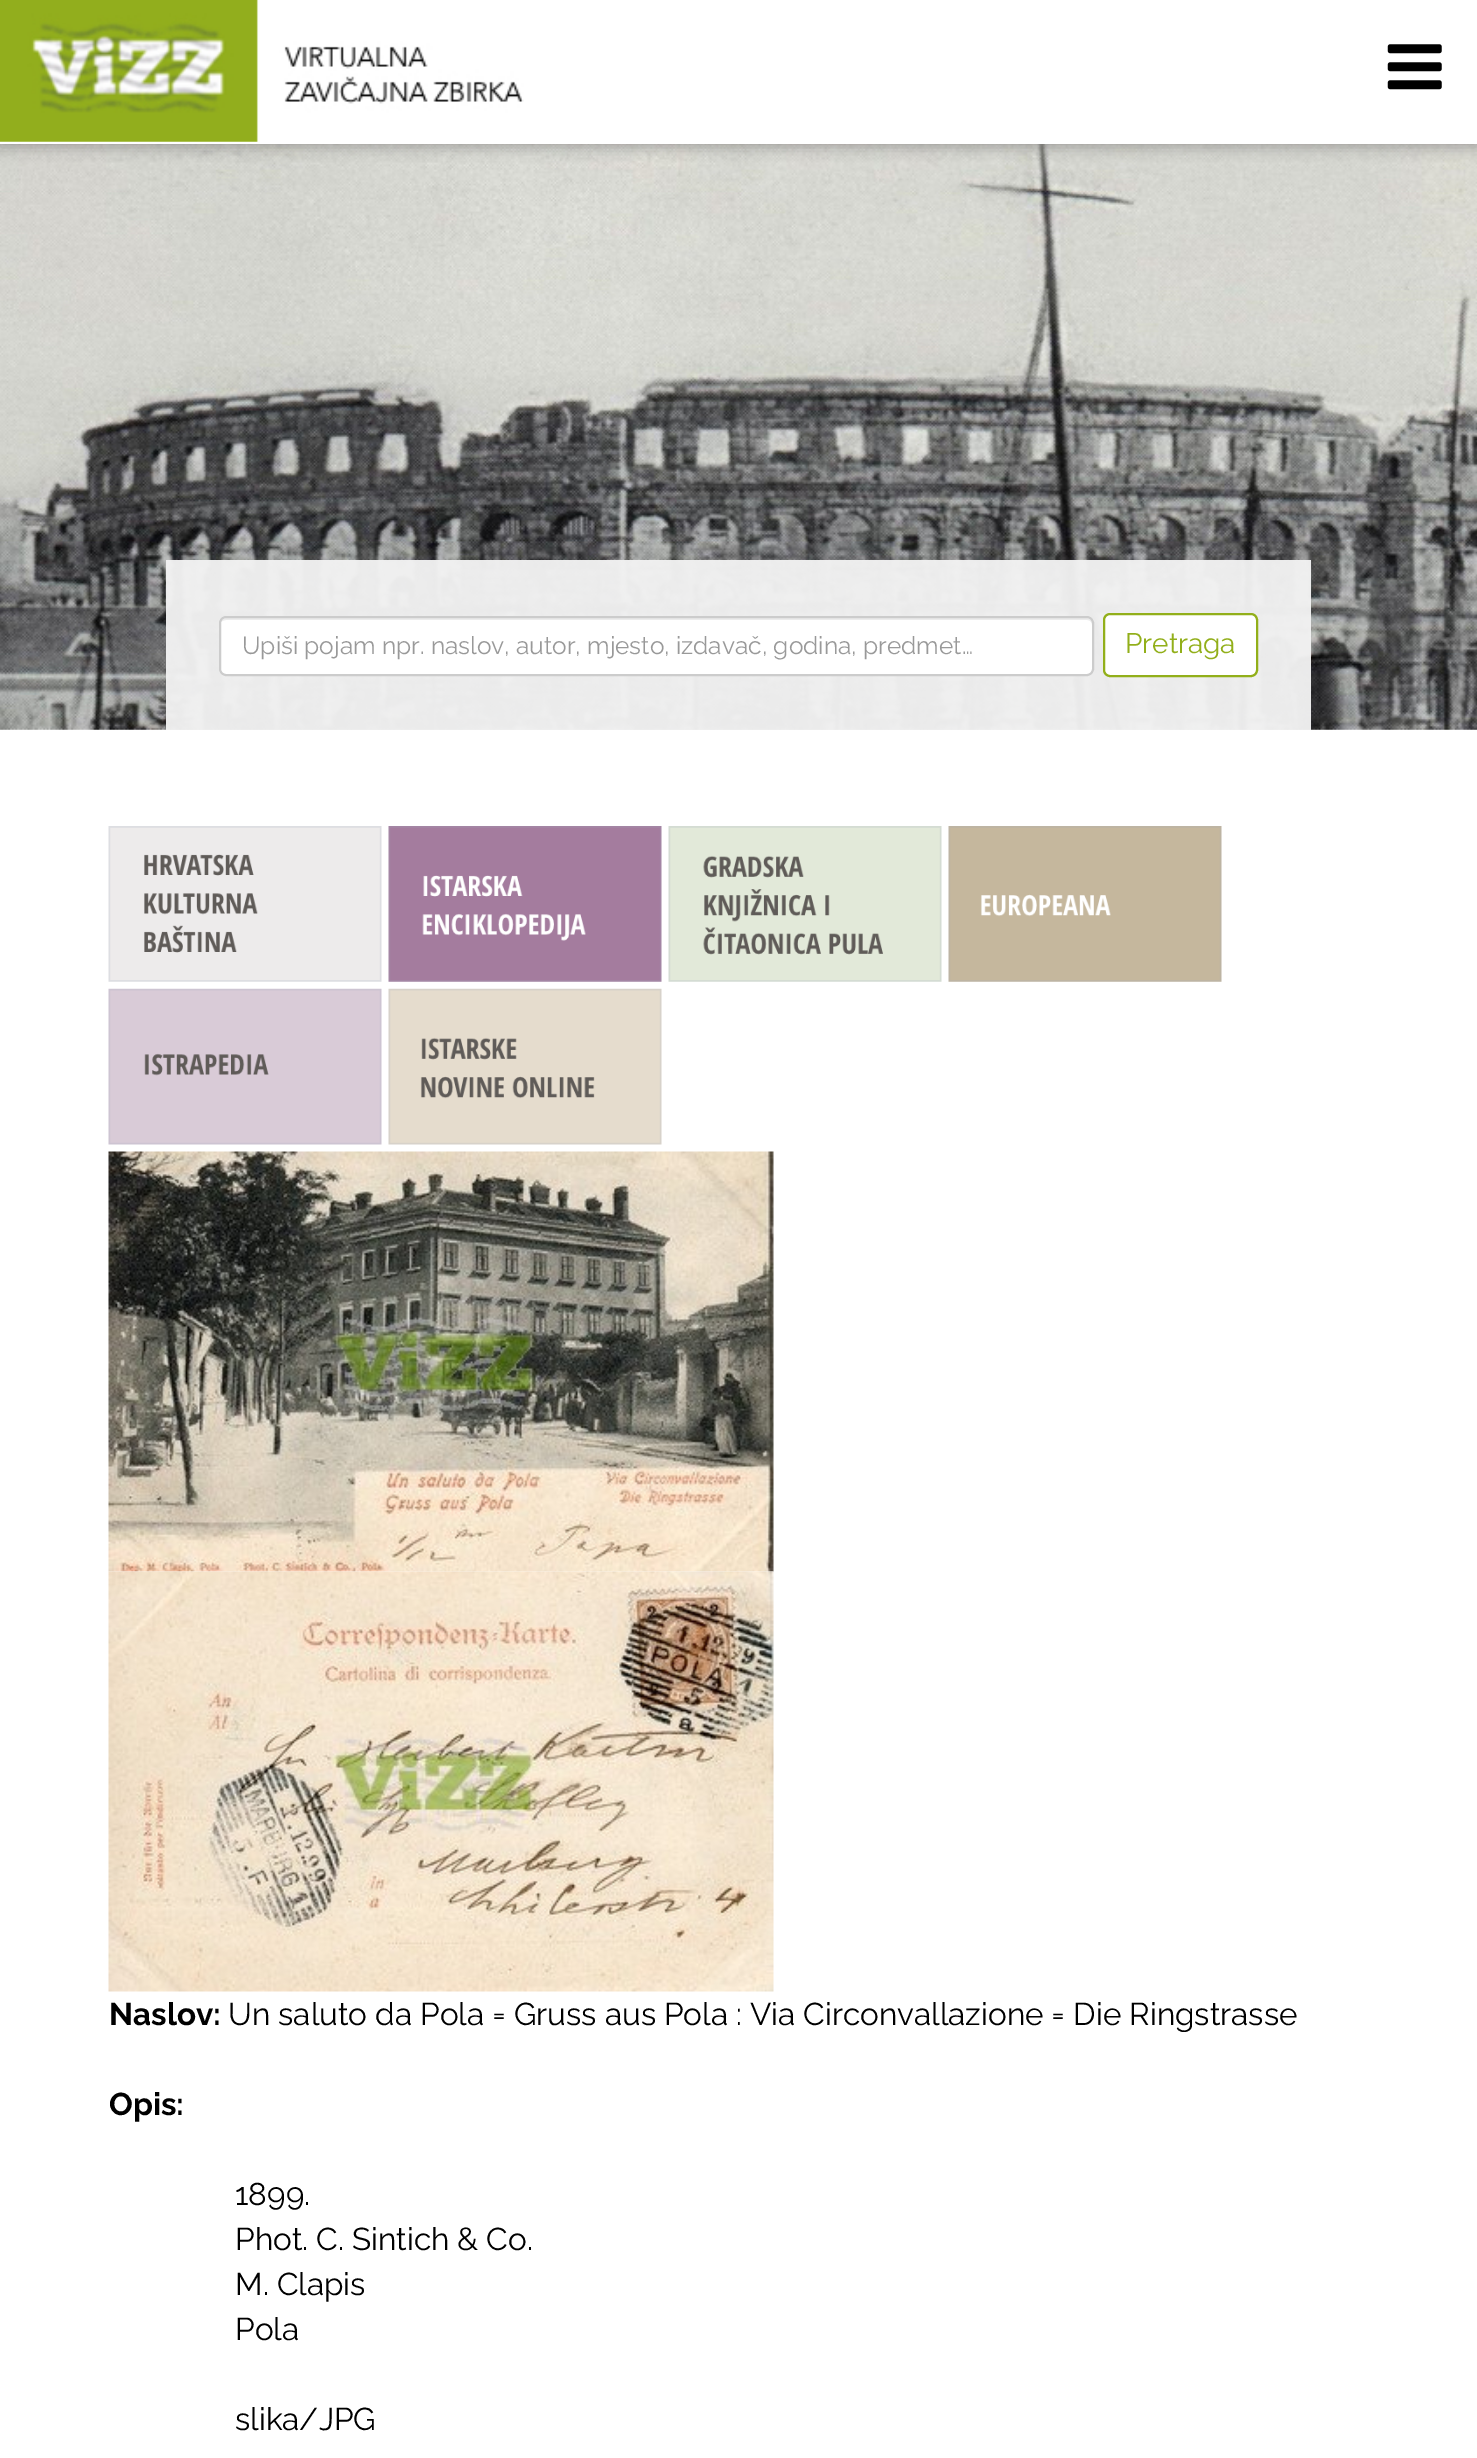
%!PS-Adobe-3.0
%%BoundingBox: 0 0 1477 2458
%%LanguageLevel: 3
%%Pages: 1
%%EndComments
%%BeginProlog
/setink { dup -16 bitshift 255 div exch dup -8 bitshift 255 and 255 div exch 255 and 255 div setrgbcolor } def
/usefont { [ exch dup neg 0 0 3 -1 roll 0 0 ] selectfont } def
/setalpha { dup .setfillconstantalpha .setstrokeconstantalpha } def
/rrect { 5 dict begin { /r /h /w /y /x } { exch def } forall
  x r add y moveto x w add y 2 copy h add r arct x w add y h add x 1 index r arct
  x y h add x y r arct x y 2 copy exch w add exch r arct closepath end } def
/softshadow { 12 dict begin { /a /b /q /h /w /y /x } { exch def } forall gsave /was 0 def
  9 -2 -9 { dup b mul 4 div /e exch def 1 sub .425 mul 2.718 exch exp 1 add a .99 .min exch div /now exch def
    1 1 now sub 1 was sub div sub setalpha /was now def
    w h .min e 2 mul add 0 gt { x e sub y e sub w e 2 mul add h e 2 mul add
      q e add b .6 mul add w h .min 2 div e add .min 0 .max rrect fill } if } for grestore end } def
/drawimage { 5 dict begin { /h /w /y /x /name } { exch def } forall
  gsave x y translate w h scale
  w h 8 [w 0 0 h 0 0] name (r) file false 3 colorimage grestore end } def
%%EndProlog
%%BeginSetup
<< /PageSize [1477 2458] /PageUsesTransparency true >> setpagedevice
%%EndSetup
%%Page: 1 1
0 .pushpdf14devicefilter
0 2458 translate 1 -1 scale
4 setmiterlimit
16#FFFFFF setink
0 0 1477 2458 rectfill
(img3.raw) 0 144 1477 586 drawimage
16#000000 setink
0 4 1477 143 0 7 0.2 softshadow
16#FFFFFF setink
0 0 1477 144 rectfill
(img1.raw) 0 0 524 142 drawimage
(img2.raw) 1387 44 55 46 drawimage
0.96 setalpha
16#F2F2F2 setink
166 560 1145 170 rectfill
1 setalpha
16#FFFFFF setink
219 616 875 60 7 rrect fill
16#ECECEC setink
226 620 moveto 1087 620 lineto 1090 620 1092 622 1092 625 curveto 1092 623 lineto 1092 620 1090 618 1087 618 curveto 226 618 lineto 224 618 221 620 221 622 curveto 222 621 224 620 226 620 curveto closepath fill
16#CCCCCC setink
2 setlinewidth
220 617 873 58 6 rrect stroke
/Raleway-Regular 24.5 usefont
16#999999 setink
242 654 moveto (Upiši pojam npr. naslov, autor, mjesto, izdavač, godina, predmet…) show
16#FFFFFF setink
1104 614 153 62 6 rrect gsave fill grestore
16#92AF1A setink
stroke
/Raleway-Regular 28 usefont
1125 653 moveto (Pretraga) show
(img4.raw) 108 826 274 156 drawimage
(img5.raw) 388 826 274 156 drawimage
(img6.raw) 668 826 274 156 drawimage
(img7.raw) 948 826 274 156 drawimage
(img8.raw) 108 988 274 157 drawimage
(img9.raw) 388 988 274 157 drawimage
(img10.raw) 108 1151 666 421 drawimage
(img11.raw) 108 1571 666 421 drawimage
/Raleway-Bold 31.5 usefont
16#000000 setink
109 2025 moveto (Naslov:) show
/Raleway-Regular 31.5 usefont
228 2025 moveto (Un saluto da Pola = Gruss aus Pola : Via Circonvallazione = Die Ringstrasse) show
/Raleway-Bold 31.5 usefont
109 2115 moveto (Opis:) show
/Raleway-Regular 31.5 usefont
[
    [(1899.) 235 2205]
    [(Phot. C. Sintich & Co.) 235 2250]
    [(M. Clapis) 235 2295]
    [(Pola) 235 2340]
    [(slika/JPG) 235 2430]
] { aload pop moveto show } forall
.poppdf14devicefilter showpage
%%EOF
